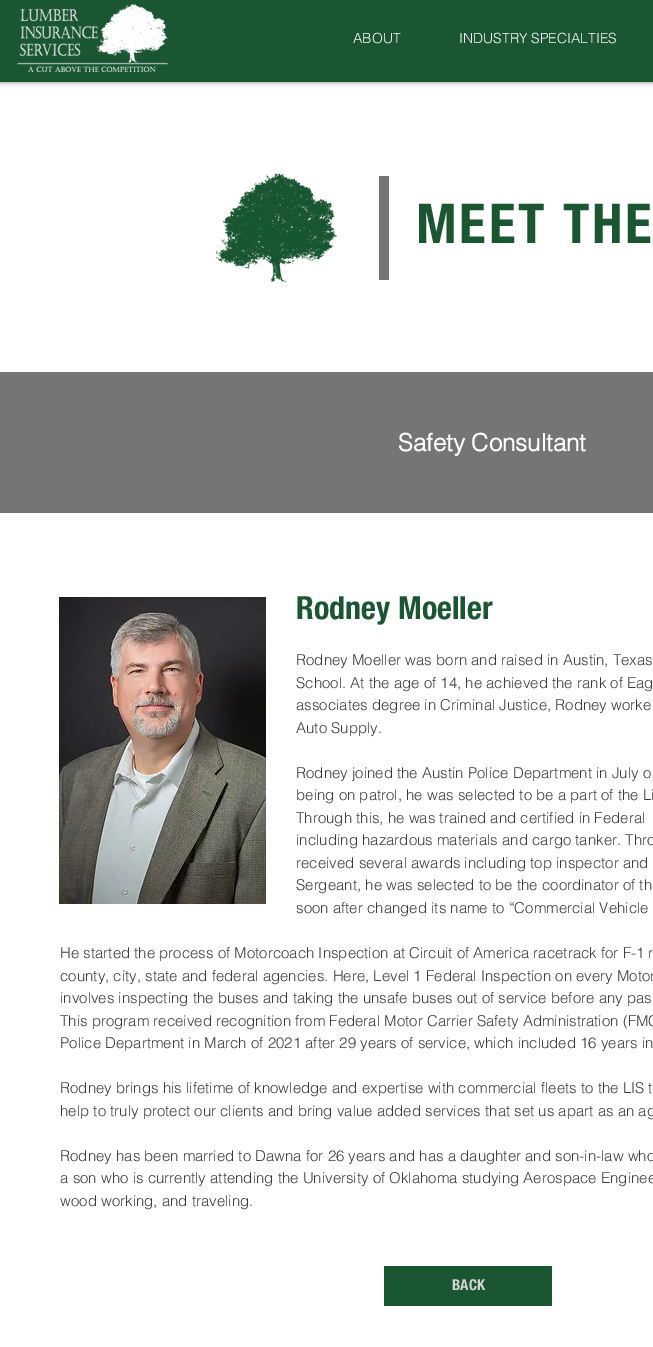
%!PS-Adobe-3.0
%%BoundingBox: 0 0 653 1347
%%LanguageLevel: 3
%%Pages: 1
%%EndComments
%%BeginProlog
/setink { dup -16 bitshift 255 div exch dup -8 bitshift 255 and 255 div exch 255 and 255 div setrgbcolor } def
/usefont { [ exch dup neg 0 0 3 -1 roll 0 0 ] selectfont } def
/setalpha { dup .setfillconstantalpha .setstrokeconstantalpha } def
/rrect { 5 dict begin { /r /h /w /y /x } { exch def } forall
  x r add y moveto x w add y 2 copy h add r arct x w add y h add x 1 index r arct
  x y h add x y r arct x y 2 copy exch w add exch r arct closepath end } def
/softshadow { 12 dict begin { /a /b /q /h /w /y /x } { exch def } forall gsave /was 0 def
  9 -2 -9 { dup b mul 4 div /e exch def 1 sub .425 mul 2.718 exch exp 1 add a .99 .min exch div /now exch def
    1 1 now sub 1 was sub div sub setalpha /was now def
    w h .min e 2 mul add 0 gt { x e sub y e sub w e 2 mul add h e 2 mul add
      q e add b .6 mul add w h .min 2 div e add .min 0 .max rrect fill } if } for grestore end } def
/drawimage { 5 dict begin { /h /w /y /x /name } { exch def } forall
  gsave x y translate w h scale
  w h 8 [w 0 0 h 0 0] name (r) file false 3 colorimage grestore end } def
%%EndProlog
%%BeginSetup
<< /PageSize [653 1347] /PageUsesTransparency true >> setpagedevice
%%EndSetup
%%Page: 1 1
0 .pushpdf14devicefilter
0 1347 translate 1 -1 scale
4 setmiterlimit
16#FFFFFF setink
0 0 653 1347 rectfill
16#000000 setink
0 -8 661 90 0 2.5 0.5 softshadow
16#1A5632 setink
0 0 653 82 rectfill
(img1.raw) 17 4 151 68 drawimage
/helvetica-Light 14 usefont
16#FFFFFF setink
353 43 moveto (ABOUT) show
459 43 moveto (INDUSTRY SPECIALTIES) show
(img2.raw) 216 173 121 109 drawimage
16#757575 setink
379 176 10 104 rectfill
/HelveticaNeue-Bold 55 usefont
16#1A5632 setink
416 243 moveto 2.75 0 (MEET THE) ashow
16#757575 setink
0 372 653 141 rectfill
/helvetica-Bold 24 usefont
16#FFFFFF setink
398 451 moveto (Safety Consultant) show
(img3.raw) 59 597 207 307 drawimage
/HelveticaNeue-Bold 32 usefont
16#1A5632 setink
296 619 moveto (Rodney Moeller) show
/helvetica-Light 15 usefont
16#3B3A3A setink
[
    [(Rodney Moeller was born and raised in Austin, Texas) 296 665]
    [(School. At the age of 14, he achieved the rank of Eag) 296 688]
    [(associates degree in Criminal Justice, Rodney worke) 296 710]
    [(Auto Supply.) 296 733]
    [(Rodney joined the Austin Police Department in July o) 296 778]
    [(being on patrol, he was selected to be a part of the Li) 296 800]
    [(Through this, he was trained and certified in Federal) 296 823]
    [(including hazardous materials and cargo tanker. Thro) 296 845]
    [(received several awards including top inspector and) 296 868]
    [(Sergeant, he was selected to be the coordinator of th) 296 890]
    [(soon after changed its name to “Commercial Vehicle) 296 913]
    [(He started the process of Motorcoach Inspection at Circuit of America racetrack for F-1 r) 60 958]
    [(county, city, state and federal agencies. Here, Level 1 Federal Inspection on every Motor) 60 981]
    [(involves inspecting the buses and taking the unsafe buses out of service before any pas) 60 1003]
    [(This program received recognition from Federal Motor Carrier Safety Administration \(FMC) 60 1026]
    [(Police Department in March of 2021 after 29 years of service, which included 16 years in) 60 1048]
    [(Rodney brings his lifetime of knowledge and expertise with commercial fleets to the LIS t) 60 1093]
    [(help to truly protect our clients and bring value added services that set us apart as an ag) 60 1116]
    [(Rodney has been married to Dawna for 26 years and has a daughter and son-in-law who) 60 1161]
    [(a son who is currently attending the University of Oklahoma studying Aerospace Enginee) 60 1183]
    [(wood working, and traveling.) 60 1206]
] { aload pop moveto show } forall
16#1A5632 setink
384 1266 168 40 rectfill
/HelveticaNeue-Bold 15 usefont
16#D4D4D4 setink
452 1290 moveto (BACK) show
.poppdf14devicefilter showpage
%%EOF
